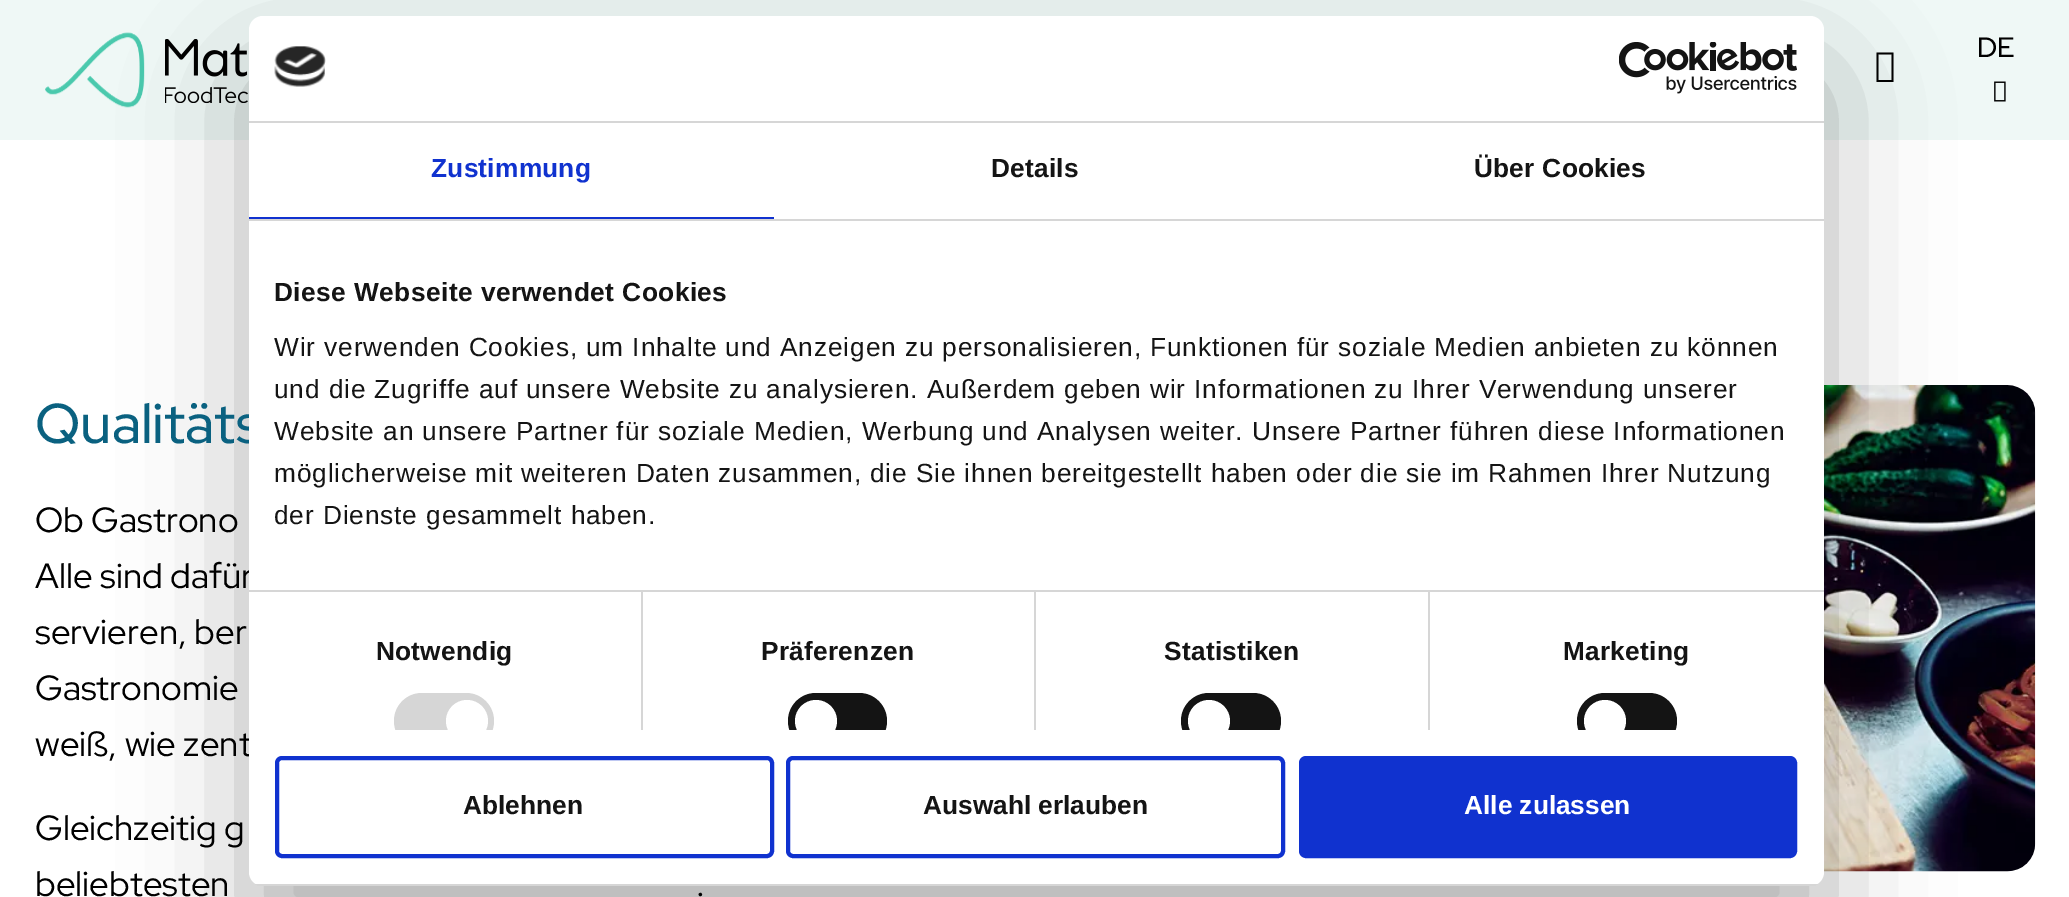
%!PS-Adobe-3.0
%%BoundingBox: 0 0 2069 897
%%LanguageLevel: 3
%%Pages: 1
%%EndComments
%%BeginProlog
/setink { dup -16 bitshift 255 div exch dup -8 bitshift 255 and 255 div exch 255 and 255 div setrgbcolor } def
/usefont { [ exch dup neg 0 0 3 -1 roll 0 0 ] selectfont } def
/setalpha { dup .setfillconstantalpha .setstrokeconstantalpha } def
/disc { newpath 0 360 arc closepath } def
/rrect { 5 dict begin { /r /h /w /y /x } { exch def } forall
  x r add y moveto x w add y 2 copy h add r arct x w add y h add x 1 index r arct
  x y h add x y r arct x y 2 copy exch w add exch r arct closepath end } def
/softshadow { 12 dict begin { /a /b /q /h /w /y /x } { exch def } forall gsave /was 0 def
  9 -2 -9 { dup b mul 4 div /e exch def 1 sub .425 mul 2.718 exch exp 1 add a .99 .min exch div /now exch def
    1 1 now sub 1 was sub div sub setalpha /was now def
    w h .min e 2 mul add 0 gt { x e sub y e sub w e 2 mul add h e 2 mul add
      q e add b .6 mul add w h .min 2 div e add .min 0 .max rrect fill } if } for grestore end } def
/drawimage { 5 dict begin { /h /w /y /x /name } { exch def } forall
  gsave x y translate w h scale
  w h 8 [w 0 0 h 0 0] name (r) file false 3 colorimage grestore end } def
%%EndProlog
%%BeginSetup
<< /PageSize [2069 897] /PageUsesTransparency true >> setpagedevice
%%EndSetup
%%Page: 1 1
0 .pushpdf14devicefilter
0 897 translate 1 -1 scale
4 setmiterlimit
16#FFFFFF setink
0 0 2069 897 rectfill
16#EFF8F6 setink
0 0 2069 140 rectfill
(img1.raw) 45 32 100 76 drawimage
(img2.raw) 165 39 83 64 drawimage
/RedHatDisplay-Medium 28 usefont
16#000000 setink
1977 57 moveto (DE) show
(img3.raw) 1994 81 12 21 drawimage
1876.5 82 moveto 1876.5 52.5 lineto 1893.5 52.5 lineto 1893.5 82 lineto closepath 1878.5 80 moveto 1891.5 80 lineto 1891.5 54.5 lineto 1878.5 54.5 lineto closepath fill
(img6.raw) 1824 385 212 487 drawimage
249 72 1575 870 14 59.5 0.3 softshadow
/RedHatDisplay-Medium 56 usefont
16#0A6180 setink
35 443 moveto (Qualitäts) show
/RedHatDisplay-Regular 35 usefont
16#000000 setink
35 588 moveto (Alle sind dafür) show
35 756 moveto (weiß, wie zent) show
16#FFFFFF setink
249 16 1575 870 14 rrect fill
16#D6D6D6 setink
249 121 1575 2 rectfill
(img4.raw) 274 46 52 41 drawimage
(img5.raw) 1619 42 178 52 drawimage
249 219 1575 2 rectfill
16#1032CF setink
249 217 525 2 rectfill
/LiberationSans-Bold 26.25 usefont
431 177 moveto 0.25 0 (Zustimmung) ashow
16#141414 setink
991 177 moveto 0.25 0 (Details) ashow
1474 177 moveto 0.25 0 (Über Cookies) ashow
16#D6D6D6 setink
249 590 1575 2 rectfill
16#141414 setink
274 301 moveto 0.45 0 (Diese Webseite verwendet Cookies) ashow
/LiberationSans-Regular 26.25 usefont
274 356 moveto 0.88 0 (Wir verwenden Cookies, um Inhalte und Anzeigen zu personalisieren, Funktionen für soziale Medien anbieten zu können) ashow
274 398 moveto 0.88 0 (und die Zugriffe auf unsere Website zu analysieren. Außerdem geben wir Informationen zu Ihrer Verwendung unserer) ashow
274 440 moveto 0.88 0 (Website an unsere Partner für soziale Medien, Werbung und Analysen weiter. Unsere Partner führen diese Informationen) ashow
274 482 moveto 0.88 0 (möglicherweise mit weiteren Daten zusammen, die Sie ihnen bereitgestellt haben oder die sie im Rahmen Ihrer Nutzung) ashow
274 524 moveto 0.88 0 (der Dienste gesammelt haben.) ashow
16#D6D6D6 setink
641 592 2 138 rectfill
/LiberationSans-Bold 26.25 usefont
16#141414 setink
376 660 moveto 0.25 0 (Notwendig) ashow
gsave
249 221 1575 509 rectclip
16#D6D6D6 setink
394 693 100 56 28 rrect fill
16#FFFFFF setink
467 721 21 disc fill
grestore
16#D6D6D6 setink
1034 592 2 138 rectfill
16#141414 setink
761 660 moveto 0.25 0 (Präferenzen) ashow
gsave
249 221 1575 509 rectclip
788 693 99 56 28 rrect fill
16#FFFFFF setink
816 721 21 disc fill
grestore
16#D6D6D6 setink
1428 592 2 138 rectfill
16#141414 setink
1164 660 moveto 0.25 0 (Statistiken) ashow
gsave
249 221 1575 509 rectclip
1181 693 100 56 28 rrect fill
16#FFFFFF setink
1209 721 21 disc fill
grestore
1563 660 moveto 0.25 0 (Marketing) ashow
gsave
249 221 1575 509 rectclip
1577 693 100 56 28 rrect fill
16#FFFFFF setink
1605 721 21 disc fill
grestore
gsave
249 16 1575 870 14 rrect clip newpath
16#D6D6D6 setink
249 884 1575 2 rectfill
grestore
16#1032CF setink
4 setlinewidth
277 758 495 98 5 rrect stroke
16#141414 setink
463 814 moveto (Ablehnen) show
16#1032CF setink
788 758 495 98 5 rrect stroke
16#141414 setink
923 814 moveto (Auswahl erlauben) show
16#1032CF setink
1301 758 494 98 5 rrect gsave fill grestore
stroke
16#FFFFFF setink
1464 814 moveto (Alle zulassen) show
/RedHatDisplay-Regular 35 usefont
16#000000 setink
[
    [(Ob Gastrono) 35 532]
    [(servieren, ber) 35 644]
    [(Gastronomie) 35 700]
    [(Gleichzeitig g) 35 840]
    [(beliebtesten) 35 896]
    [(.) 696 896]
] { aload pop moveto show } forall
.poppdf14devicefilter showpage
%%EOF
